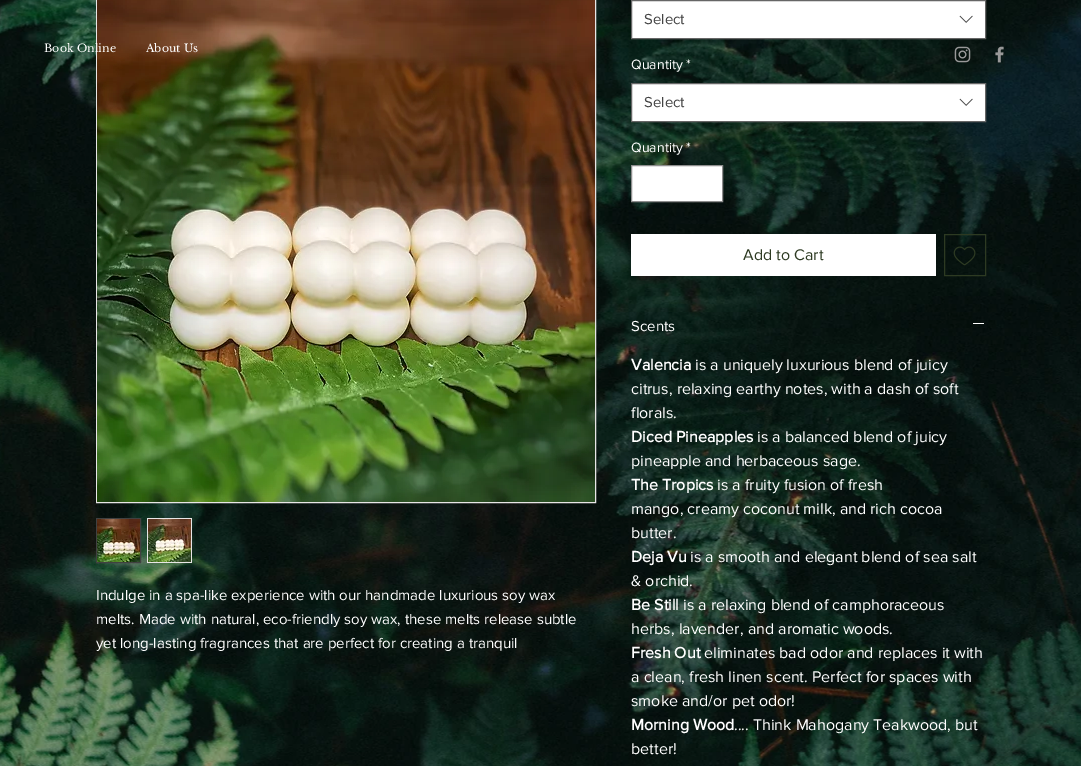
%!PS-Adobe-3.0
%%BoundingBox: 0 0 1081 766
%%LanguageLevel: 3
%%Pages: 1
%%EndComments
%%BeginProlog
/setink { dup -16 bitshift 255 div exch dup -8 bitshift 255 and 255 div exch 255 and 255 div setrgbcolor } def
/usefont { [ exch dup neg 0 0 3 -1 roll 0 0 ] selectfont } def
/drawimage { 5 dict begin { /h /w /y /x /name } { exch def } forall
  gsave x y translate w h scale
  w h 8 [w 0 0 h 0 0] name (r) file false 3 colorimage grestore end } def
%%EndProlog
%%BeginSetup
<< /PageSize [1081 766] >> setpagedevice
%%EndSetup
%%Page: 1 1
0 766 translate 1 -1 scale
4 setmiterlimit
16#FFFFFF setink
0 0 1081 766 rectfill
(img1.raw) 0 0 1081 766 drawimage
16#E8E6E6 setink
96.5 -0.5 499 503 rectstroke
(img2.raw) 97 0 498 502 drawimage
16#414141 setink
96.5 518.5 44 44 rectstroke
(img3.raw) 97 519 43 43 drawimage
16#E8E6E6 setink
147 518 45 45 rectfill
(img4.raw) 148 519 43 43 drawimage
/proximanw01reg-Regular 15 usefont
16#FFFFFF setink
[
    [(Indulge in a spa-like experience with our handmade luxurious soy wax) 96 600]
    [(melts. Made with natural, eco-friendly soy wax, these melts release subtle) 96 624]
    [(yet long-lasting fragrances that are perfect for creating a tranquil) 96 648]
] { aload pop moveto show } forall
631.5 0.5 moveto 985.5 0.5 lineto 985.5 38.5 lineto 631.5 38.5 lineto closepath gsave fill grestore
16#666666 setink
stroke
16#444444 setink
644 24 moveto (Select) show
(img5.raw) 959 15 14 8 drawimage
/proximanw01reg-Regular 14 usefont
16#FFFFFF setink
631 69 moveto (Quantity) show
686 69 moveto (*) show
631.5 83.5 moveto 985.5 83.5 lineto 985.5 121.5 lineto 631.5 121.5 lineto closepath gsave fill grestore
16#666666 setink
stroke
/proximanw01reg-Regular 15 usefont
16#444444 setink
644 107 moveto (Select) show
(img5.raw) 959 98 14 8 drawimage
/proximanw01reg-Regular 14 usefont
16#FFFFFF setink
631 152 moveto (Quantity) show
686 152 moveto (*) show
631.5 165.5 moveto 722.5 165.5 lineto 722.5 201.5 lineto 631.5 201.5 lineto closepath gsave fill grestore
16#8D8D8D setink
stroke
16#FFFFFF setink
631 234 305 42 rectfill
/proximanw01reg-Regular 16 usefont
16#2D3A22 setink
743 260 moveto (Add to Cart) show
944.5 234.5 41 41 rectstroke
(img6.raw) 953 246 23 20 drawimage
/proximanw01reg-Regular 15 usefont
16#FFFFFF setink
631 331 moveto (Scents) show
973 323 11 1 rectfill
/proximanw01reg-Bold 16 usefont
631 370 moveto (Valencia) show
/proximanw01reg-Regular 16 usefont
[
    [(is a uniquely luxurious blend of juicy) 695 370]
    [(citrus, relaxing earthy notes, with a dash of soft) 631 394]
    [(florals.) 631 418]
] { aload pop moveto show } forall
/proximanw01reg-Bold 16 usefont
631 442 moveto (Diced Pineapples) show
/proximanw01reg-Regular 16 usefont
757 442 moveto (is a balanced blend of juicy) show
631 466 moveto (pineapple and herbaceous sage.) show
/proximanw01reg-Bold 16 usefont
631 490 moveto (The Tropics) show
/proximanw01reg-Regular 16 usefont
[
    [(is a fruity fusion of fresh) 717 490]
    [(mango, creamy coconut milk, and rich cocoa) 631 514]
    [(butter.) 631 538]
] { aload pop moveto show } forall
/proximanw01reg-Bold 16 usefont
631 562 moveto (Deja Vu) show
/proximanw01reg-Regular 16 usefont
690 562 moveto (is a smooth and elegant blend of sea salt) show
631 586 moveto (& orchid.) show
/proximanw01reg-Bold 16 usefont
631 610 moveto (Be Still) show
/proximanw01reg-Regular 16 usefont
683 610 moveto (is a relaxing blend of camphoraceous) show
631 634 moveto (herbs, lavender, and aromatic woods.) show
/proximanw01reg-Bold 16 usefont
631 658 moveto (Fresh Out) show
/proximanw01reg-Regular 16 usefont
[
    [(eliminates bad odor and replaces it with) 704 658]
    [(a clean, fresh linen scent. Perfect for spaces with) 631 682]
    [(smoke and/or pet odor!) 631 706]
] { aload pop moveto show } forall
/proximanw01reg-Bold 16 usefont
631 730 moveto (Morning Wood) show
/proximanw01reg-Regular 16 usefont
734 730 moveto (.... Think Mahogany Teakwood, but) show
631 754 moveto (better!) show
/LibreBaskerville-Regular 11 usefont
44 52 moveto (Book Online) show
146 52 moveto (About Us) show
(img7.raw) 954 46 17 17 drawimage
(img8.raw) 995 46 9 17 drawimage
showpage
%%EOF
